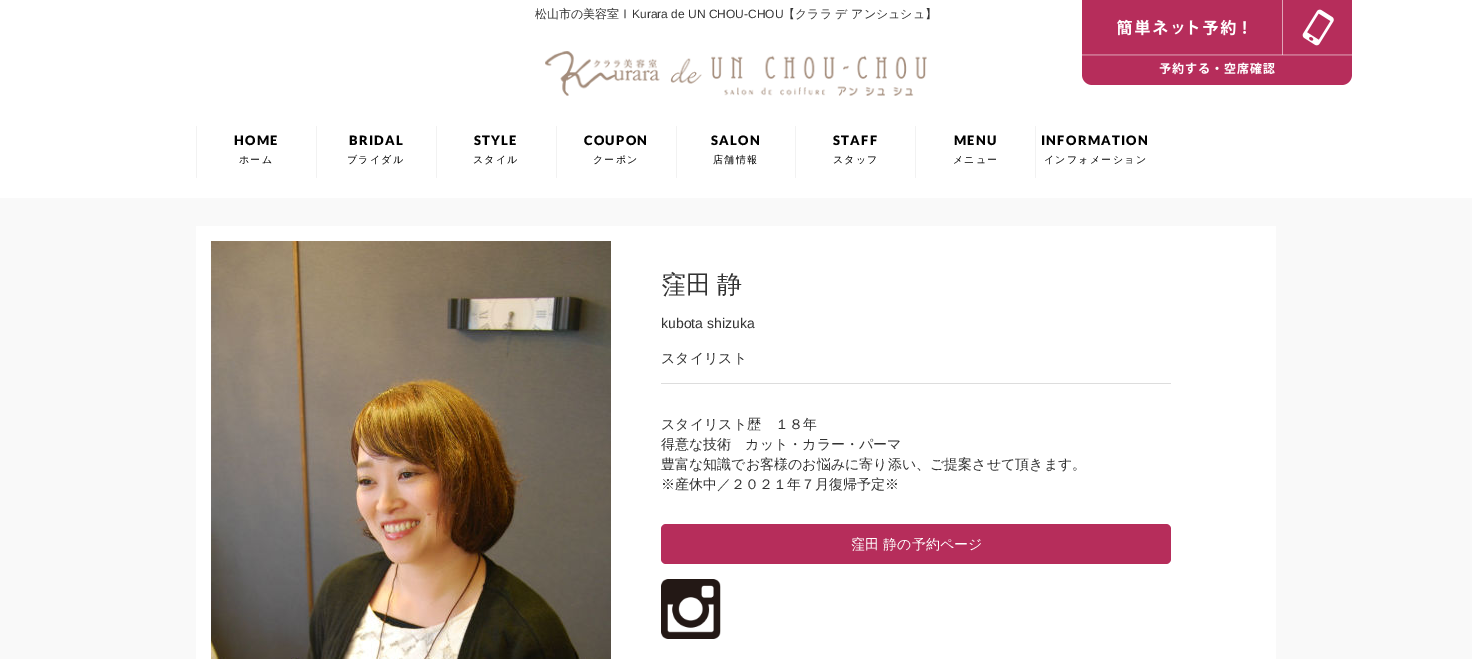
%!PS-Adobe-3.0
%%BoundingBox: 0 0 1472 659
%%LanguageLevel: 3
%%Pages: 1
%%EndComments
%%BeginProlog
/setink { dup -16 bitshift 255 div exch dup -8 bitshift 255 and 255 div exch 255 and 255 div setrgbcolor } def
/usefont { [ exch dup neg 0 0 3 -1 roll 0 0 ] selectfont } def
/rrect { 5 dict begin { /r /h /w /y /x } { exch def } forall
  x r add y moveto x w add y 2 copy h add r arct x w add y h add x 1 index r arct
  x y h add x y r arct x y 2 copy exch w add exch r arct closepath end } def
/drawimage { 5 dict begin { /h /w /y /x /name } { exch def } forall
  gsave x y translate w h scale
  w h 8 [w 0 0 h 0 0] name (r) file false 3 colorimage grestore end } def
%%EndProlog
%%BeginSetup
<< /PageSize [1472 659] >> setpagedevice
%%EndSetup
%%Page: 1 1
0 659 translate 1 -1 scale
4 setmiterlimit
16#F9F9F9 setink
0 0 1472 659 rectfill
16#FFFFFF setink
0 0 1472 198 rectfill
/WenQuanYiZenHei-Medium 12 usefont
16#333333 setink
535 18 moveto (松山市の美容室Ⅰ) show
/LiberationSans-Regular 12 usefont
632 18 moveto (Kurara de UN CHOU-CHOU) show
/WenQuanYiZenHei-Medium 12 usefont
783 18 moveto (【クララ デ アンシュシュ】) show
(img1.raw) 545 51 382 45 drawimage
(img2.raw) 1082 0 270 85 drawimage
16#F2F2F2 setink
196 126 1 52 rectfill
/Lato-Black 13 usefont
16#000000 setink
234 145 moveto 1.25 0 (HOME) ashow
/WenQuanYiZenHei-Medium 10 usefont
239 163 moveto 1.25 0 (ホーム) ashow
16#F2F2F2 setink
316 126 1 52 rectfill
/Lato-Black 13 usefont
16#000000 setink
349 145 moveto 1.25 0 (BRIDAL) ashow
/WenQuanYiZenHei-Medium 10 usefont
347 163 moveto 1.25 0 (ブライダル) ashow
16#F2F2F2 setink
436 126 1 52 rectfill
/Lato-Black 13 usefont
16#000000 setink
474 145 moveto 1.25 0 (STYLE) ashow
/WenQuanYiZenHei-Medium 10 usefont
473 163 moveto 1.25 0 (スタイル) ashow
16#F2F2F2 setink
556 126 1 52 rectfill
/Lato-Black 13 usefont
16#000000 setink
584 145 moveto 1.25 0 (COUPON) ashow
/WenQuanYiZenHei-Medium 10 usefont
593 163 moveto 1.25 0 (クーポン) ashow
16#F2F2F2 setink
676 126 1 52 rectfill
/Lato-Black 13 usefont
16#000000 setink
711 145 moveto 1.25 0 (SALON) ashow
/WenQuanYiZenHei-Medium 10 usefont
713 163 moveto 1.25 0 (店舗情報) ashow
16#F2F2F2 setink
795 126 1 52 rectfill
/Lato-Black 13 usefont
16#000000 setink
833 145 moveto 1.25 0 (STAFF) ashow
/WenQuanYiZenHei-Medium 10 usefont
833 163 moveto 1.25 0 (スタッフ) ashow
16#F2F2F2 setink
915 126 1 52 rectfill
/Lato-Black 13 usefont
16#000000 setink
954 145 moveto 1.25 0 (MENU) ashow
/WenQuanYiZenHei-Medium 10 usefont
953 163 moveto 1.25 0 (メニュー) ashow
16#F2F2F2 setink
1035 126 1 52 rectfill
/Lato-Black 13 usefont
16#000000 setink
1041 145 moveto 1.25 0 (INFORMATION) ashow
/WenQuanYiZenHei-Medium 10 usefont
1044 163 moveto 1.25 0 (インフォメーション) ashow
16#FFFFFF setink
196 226 1080 433 rectfill
(img3.raw) 211 241 400 418 drawimage
/WenQuanYiZenHei-Medium 25 usefont
16#333333 setink
661 293 moveto -1 0 32 (窪田 静) widthshow
/LiberationSans-Regular 14 usefont
661 328 moveto (kubota shizuka) show
/WenQuanYiZenHei-Medium 14 usefont
661 363 moveto (スタイリスト) show
16#DDDDDD setink
661 383 510 1 rectfill
16#333333 setink
[
    [(スタイリスト歴　１８年) 661 429]
    [(得意な技術　カット・カラー・パーマ) 661 449]
    [(豊富な知識でお客様のお悩みに寄り添い、ご提案させて頂きます。) 661 469]
    [(※産休中／２０２１年７月復帰予定※) 661 489]
] { aload pop moveto show } forall
16#B62D5B setink
661 524 510 40 5 rrect fill
16#FFFFFF setink
851 549 moveto (窪田 静の予約ページ) show
(img4.raw) 661 579 60 60 drawimage
showpage
%%EOF
